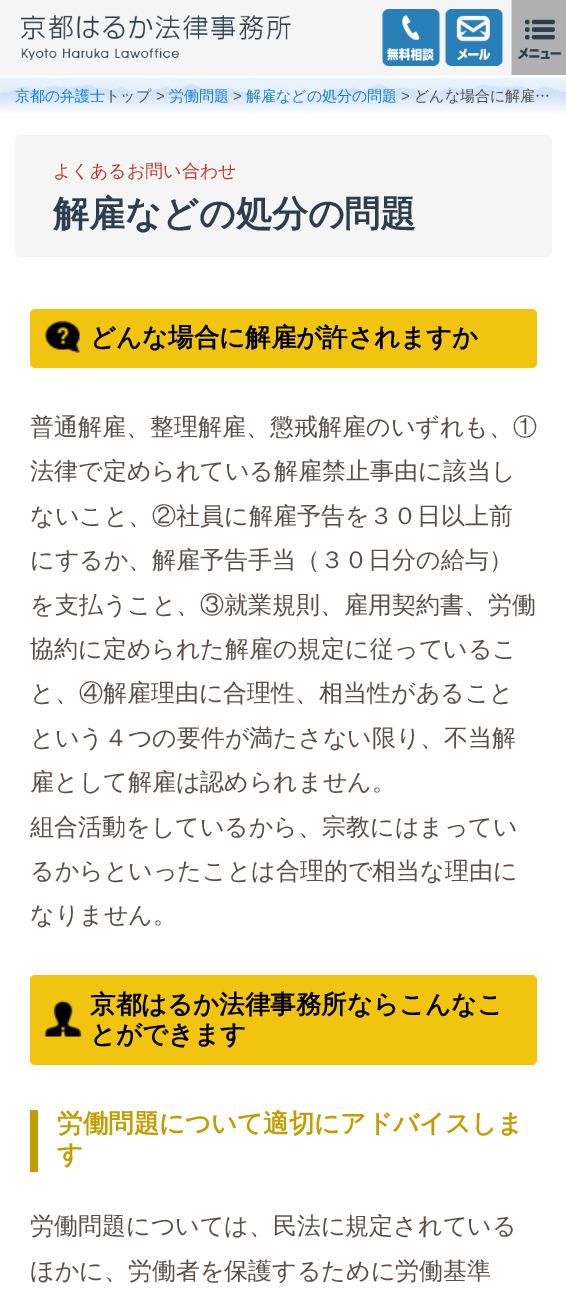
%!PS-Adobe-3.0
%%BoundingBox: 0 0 566 1293
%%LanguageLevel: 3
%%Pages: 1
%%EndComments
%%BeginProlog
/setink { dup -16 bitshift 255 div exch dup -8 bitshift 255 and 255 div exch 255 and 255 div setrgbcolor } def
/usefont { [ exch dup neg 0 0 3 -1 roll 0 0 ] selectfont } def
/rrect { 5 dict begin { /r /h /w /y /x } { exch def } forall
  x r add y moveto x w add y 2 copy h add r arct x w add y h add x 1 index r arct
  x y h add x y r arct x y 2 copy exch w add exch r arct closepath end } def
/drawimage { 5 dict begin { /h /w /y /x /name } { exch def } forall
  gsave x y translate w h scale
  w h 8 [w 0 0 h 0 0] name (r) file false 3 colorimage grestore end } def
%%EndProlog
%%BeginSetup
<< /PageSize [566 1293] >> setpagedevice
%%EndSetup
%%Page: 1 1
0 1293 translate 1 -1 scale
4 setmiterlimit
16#FFFFFF setink
0 0 566 1293 rectfill
16#F5F5F5 setink
0 0 512 75 rectfill
(img1.raw) 21 15 270 45 drawimage
(img2.raw) 382 9 58 57 drawimage
(img3.raw) 445 9 58 57 drawimage
(img4.raw) 511 0 55 75 drawimage
(img5.raw) 0 78 566 35 drawimage
/WenQuanYiZenHei-Medium 15 usefont
16#1981C9 setink
15 101 moveto (京都の弁護士) show
16#584F4B setink
105 101 moveto (トップ) show
/LiberationSans-Regular 15 usefont
156 101 moveto (>) show
/WenQuanYiZenHei-Medium 15 usefont
16#1981C9 setink
169 101 moveto (労働問題) show
/LiberationSans-Regular 15 usefont
16#584F4B setink
233 101 moveto (>) show
/WenQuanYiZenHei-Medium 15 usefont
16#1981C9 setink
246 101 moveto (解雇などの処分の問題) show
/LiberationSans-Regular 15 usefont
16#584F4B setink
401 101 moveto (>) show
/WenQuanYiZenHei-Medium 15 usefont
414 101 moveto (どんな場合に解雇…) show
16#F5F5F5 setink
15 135 537 122 5 rrect fill
/WenQuanYiZenHei-Medium 18 usefont
16#C0392B setink
53 177 moveto (よくあるお問い合わせ) show
/WenQuanYiZenHei-Bold 36 usefont
16#2C3E50 setink
53 226 moveto (解雇などの処分の問題) show
16#F1C40F setink
30 309 507 59 5 rrect fill
(img6.raw) 44 320 36 33 drawimage
/WenQuanYiZenHei-Bold 25.5 usefont
16#000000 setink
90 346 moveto (どんな場合に解雇が許されますか) show
/WenQuanYiZenHei-Medium 24 usefont
16#584F4B setink
[
    [(普通解雇、整理解雇、懲戒解雇のいずれも、①) 30 435]
    [(法律で定められている解雇禁止事由に該当し) 30 479]
    [(ないこと、②社員に解雇予告を３０日以上前) 30 524]
    [(にするか、解雇予告手当（３０日分の給与）) 30 568]
    [(を支払うこと、③就業規則、雇用契約書、労働) 30 613]
    [(協約に定められた解雇の規定に従っているこ) 30 657]
    [(と、④解雇理由に合理性、相当性があること) 30 701]
    [(という４つの要件が満たさない限り、不当解) 30 746]
    [(雇として解雇は認められません。) 30 790]
    [(組合活動をしているから、宗教にはまってい) 30 835]
    [(るからといったことは合理的で相当な理由に) 30 879]
    [(なりません。) 30 923]
] { aload pop moveto show } forall
16#F1C40F setink
30 975 507 90 5 rrect fill
(img7.raw) 44 1000 38 37 drawimage
/WenQuanYiZenHei-Bold 25.5 usefont
16#000000 setink
90 1013 moveto (京都はるか法律事務所ならこんなこ) show
90 1043 moveto (とができます) show
16#C39C00 setink
30 1110 8 62 rectfill
57 1132 moveto (労働問題について適切にアドバイスしま) show
57 1163 moveto (す) show
/WenQuanYiZenHei-Medium 24 usefont
16#584F4B setink
30 1234 moveto (労働問題については、民法に規定されている) show
30 1279 moveto (ほかに、労働者を保護するために労働基準) show
showpage
%%EOF
